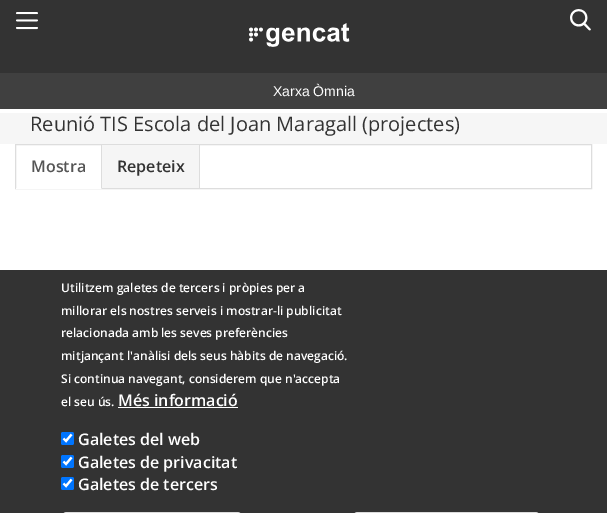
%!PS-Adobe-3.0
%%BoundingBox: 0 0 607 513
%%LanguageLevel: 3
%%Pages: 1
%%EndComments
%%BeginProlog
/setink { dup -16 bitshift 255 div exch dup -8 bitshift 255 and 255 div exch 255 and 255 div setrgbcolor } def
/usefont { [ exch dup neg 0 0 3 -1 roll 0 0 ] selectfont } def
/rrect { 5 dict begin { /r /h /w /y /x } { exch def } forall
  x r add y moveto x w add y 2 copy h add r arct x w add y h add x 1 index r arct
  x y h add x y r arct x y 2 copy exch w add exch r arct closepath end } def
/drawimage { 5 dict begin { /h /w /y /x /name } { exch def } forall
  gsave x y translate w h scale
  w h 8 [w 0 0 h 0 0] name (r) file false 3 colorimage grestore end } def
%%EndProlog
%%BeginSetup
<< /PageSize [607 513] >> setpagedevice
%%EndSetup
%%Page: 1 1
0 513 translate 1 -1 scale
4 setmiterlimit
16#FFFFFF setink
0 0 607 513 rectfill
16#333333 setink
0 0 607 73 rectfill
(img1.raw) 16 12 22 18 drawimage
(img2.raw) 249 23 101 24 drawimage
(img3.raw) 570 9 21 22 drawimage
16#404040 setink
0 73 607 36 rectfill
/LiberationSans-Regular 14 usefont
16#FFFFFF setink
273 96 moveto (Xarxa Òmnia) show
16#F6F6F6 setink
0 113 607 31 rectfill
/OpenSans-Regular 20 usefont
16#333333 setink
30 131 moveto (Reunió TIS Escola del Joan Maragall \(projectes\)) show
16#DDDDDD setink
15.5 144.5 576 44 rectstroke
16#FFFFFF setink
16 188 86 1 rectfill
16#DDDDDD setink
102 145 moveto 102 189 lineto 101 188 lineto 101 145 lineto closepath fill
/OpenSans-SemiBold 16 usefont
16#555555 setink
31 172 moveto (Mostra) show
16#F5F5F5 setink
102 145 97 43 rectfill
16#DDDDDD setink
199 145 1 44 rectfill
16#333333 setink
117 172 moveto (Repeteix) show
0 270 607 243 rectfill
/OpenSans-SemiBold 12 usefont
16#FFFFFF setink
[
    [(Utilitzem galetes de tercers i pròpies per a) 61 292]
    [(millorar els nostres serveis i mostrar-li publicitat) 61 315]
    [(relacionada amb les seves preferències) 61 337]
    [(mitjançant l'anàlisi dels seus hàbits de navegació.) 61 360]
    [(Si continua navegant, considerem que n'accepta) 61 383]
    [(el seu ús.) 61 406]
] { aload pop moveto show } forall
/OpenSans-SemiBold 16 usefont
118 406 moveto (Més informació) show
118 407 120 1 rectfill
16#0075FF setink
61 432 13 13 2 rrect fill
16#FFFFFF setink
2.1 setlinewidth
63.5 438.5 moveto 66 441 lineto 71.5 434.5 lineto stroke
78 445 moveto (Galetes del web) show
16#0075FF setink
61 455 13 13 2 rrect fill
16#FFFFFF setink
63.5 461.5 moveto 66 464 lineto 71.5 457.5 lineto stroke
78 468 moveto (Galetes de privacitat) show
16#0075FF setink
61 477 13 13 2 rrect fill
16#FFFFFF setink
63.5 483.5 moveto 66 486 lineto 71.5 479.5 lineto stroke
78 490 moveto (Galetes de tercers) show
16#DCDCDC setink
1 setlinewidth
61.5 512.5 181 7 5.5 rrect stroke
352.5 512.5 188 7 5.5 rrect stroke
showpage
%%EOF
